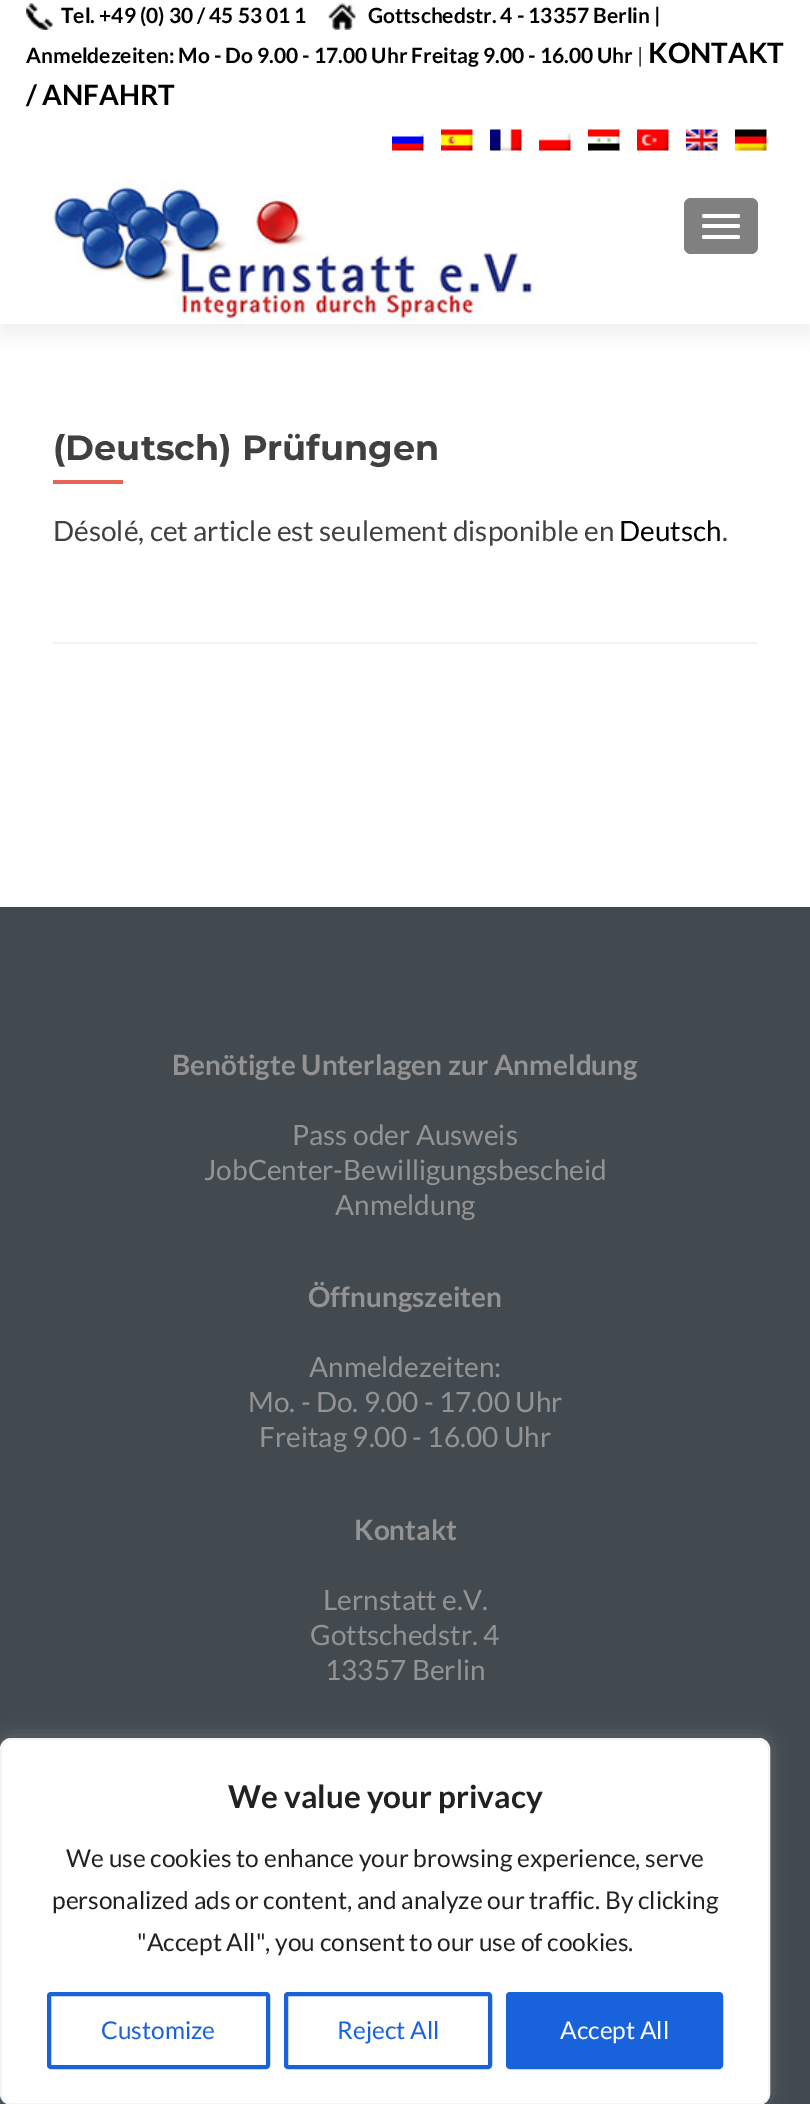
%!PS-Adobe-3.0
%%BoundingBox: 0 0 810 2104
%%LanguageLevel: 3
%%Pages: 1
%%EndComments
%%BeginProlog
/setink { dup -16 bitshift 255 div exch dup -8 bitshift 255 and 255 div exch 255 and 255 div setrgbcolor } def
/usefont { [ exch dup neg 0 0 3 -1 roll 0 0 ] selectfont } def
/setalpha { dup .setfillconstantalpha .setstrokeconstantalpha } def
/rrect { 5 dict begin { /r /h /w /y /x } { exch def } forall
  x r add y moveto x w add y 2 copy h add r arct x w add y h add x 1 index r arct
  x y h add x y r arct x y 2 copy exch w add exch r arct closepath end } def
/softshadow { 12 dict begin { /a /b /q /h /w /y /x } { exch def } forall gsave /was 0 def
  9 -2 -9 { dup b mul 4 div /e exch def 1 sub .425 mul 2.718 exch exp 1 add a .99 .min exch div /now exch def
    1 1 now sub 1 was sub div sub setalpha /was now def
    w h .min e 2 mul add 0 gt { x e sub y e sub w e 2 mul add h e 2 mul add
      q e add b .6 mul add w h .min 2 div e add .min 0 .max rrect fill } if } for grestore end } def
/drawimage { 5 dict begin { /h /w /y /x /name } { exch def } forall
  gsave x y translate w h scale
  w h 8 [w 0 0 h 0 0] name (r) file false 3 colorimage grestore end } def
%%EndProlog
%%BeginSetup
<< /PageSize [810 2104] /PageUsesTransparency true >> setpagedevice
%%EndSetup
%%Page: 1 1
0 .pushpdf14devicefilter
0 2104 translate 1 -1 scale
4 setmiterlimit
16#FFFFFF setink
0 0 810 2104 rectfill
16#323232 setink
0 9 810 324 0 9.5 0.08 softshadow
16#FFFFFF setink
0 0 810 324 rectfill
(img1.raw) 26 3 27 27 drawimage
/Lato-Bold 21 usefont
16#000000 setink
61 23 moveto (Tel. +49 \(0\) 30 / 45 53 01 1) show
(img2.raw) 328 3 28 27 drawimage
368 23 moveto (Gottschedstr. 4 - 13357 Berlin |) show
26 63 moveto (Anmeldezeiten: Mo - Do 9.00 - 17.00 Uhr Freitag 9.00 - 16.00 Uhr) show
/Lato-Regular 21 usefont
637 63 moveto (|) show
/Lato-Bold 28 usefont
648 63 moveto (KONTAKT) show
26 105 moveto (/ ANFAHRT) show
(img3.raw) 392 132 32 19 drawimage
(img4.raw) 441 129 32 22 drawimage
(img5.raw) 490 129 32 22 drawimage
(img6.raw) 539 132 32 19 drawimage
(img7.raw) 588 129 32 22 drawimage
(img8.raw) 637 129 32 22 drawimage
(img9.raw) 686 129 32 22 drawimage
(img10.raw) 735 129 32 22 drawimage
(img11.raw) 52 182 482 142 drawimage
16#808080 setink
684 198 74 56 7 rrect fill
16#FFFFFF setink
702 214 38 4 2 rrect fill
702 224 38 4 2 rrect fill
702 235 38 4 2 rrect fill
16#F2F2F2 setink
53 642 705 2 rectfill
/Montserrat-Bold 35 usefont
16#404040 setink
53 460 moveto (\(Deutsch\) Prüfungen) show
16#E96656 setink
53 480 70 4 rectfill
/Lato-Regular 28 usefont
16#404040 setink
53 541 moveto (Désolé, cet article est seulement disponible en) show
16#000000 setink
619 541 moveto (Deutsch) show
16#404040 setink
722 541 moveto (.) show
16#424A50 setink
0 907 810 1197 rectfill
/Lato-Bold 28 usefont
16#939393 setink
172 1075 moveto (Benötigte Unterlagen zur Anmeldung) show
/Lato-Regular 28 usefont
[
    [(Pass oder Ausweis) 292 1145]
    [(JobCenter-Bewilligungsbescheid) 204 1180]
    [(Anmeldung) 335 1215]
] { aload pop moveto show } forall
/Lato-Bold 28 usefont
308 1307 moveto (Öffnungszeiten) show
/Lato-Regular 28 usefont
[
    [(Anmeldezeiten:) 309 1377]
    [(Mo. - Do. 9.00 - 17.00 Uhr) 248 1412]
    [(Freitag 9.00 - 16.00 Uhr) 259 1447]
] { aload pop moveto show } forall
/Lato-Bold 28 usefont
354 1540 moveto (Kontakt) show
/Lato-Regular 28 usefont
[
    [(Lernstatt e.V.) 323 1610]
    [(Gottschedstr. 4) 310 1645]
    [(13357 Berlin) 325 1680]
] { aload pop moveto show } forall
16#ACABAB setink
0 1736 770 368 11 9 0.3 softshadow
16#FFFFFF setink
1 1739 768 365 10 rrect gsave fill grestore
16#F4F4F4 setink
2 setlinewidth
stroke
/Lato-Bold 31.5 usefont
16#212121 setink
228 1808 moveto (We value your privacy) show
/Lato-Regular 24.5 usefont
[
    [(We use cookies to enhance your browsing experience, serve) 66 1867]
    [(personalized ads or content, and analyze our traffic. By clicking) 52 1909]
    [("Accept All", you consent to our use of cookies.) 137 1951]
] { aload pop moveto show } forall
16#1863DC setink
4 setlinewidth
49 1994 219 73 2 rrect stroke
101 2039 moveto (Customize) show
286 1994 204 73 2 rrect stroke
337 2039 moveto (Reject All) show
508 1994 213 73 2 rrect gsave fill grestore
stroke
16#FFFFFF setink
560 2039 moveto (Accept All) show
.poppdf14devicefilter showpage
%%EOF
